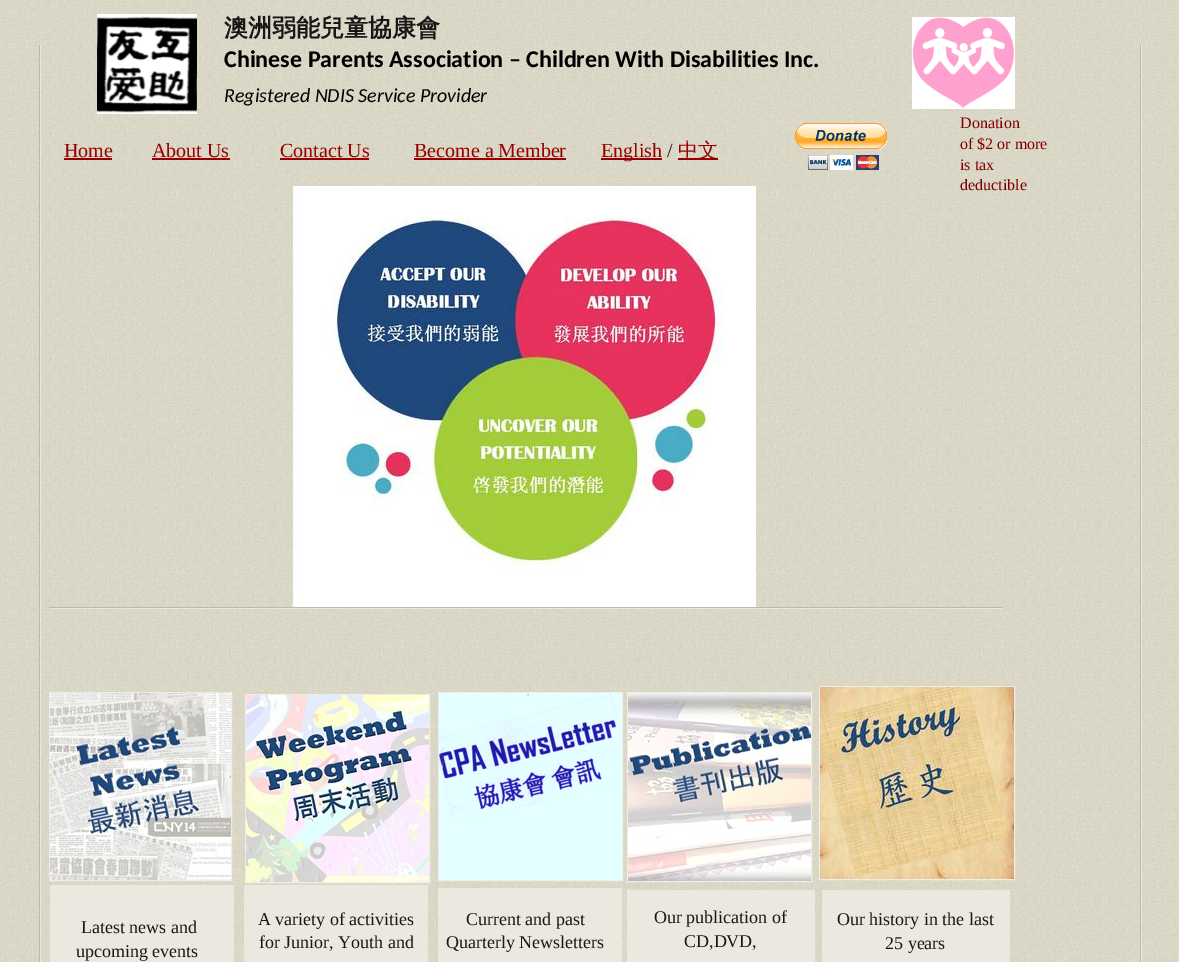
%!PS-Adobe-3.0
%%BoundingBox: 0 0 1179 962
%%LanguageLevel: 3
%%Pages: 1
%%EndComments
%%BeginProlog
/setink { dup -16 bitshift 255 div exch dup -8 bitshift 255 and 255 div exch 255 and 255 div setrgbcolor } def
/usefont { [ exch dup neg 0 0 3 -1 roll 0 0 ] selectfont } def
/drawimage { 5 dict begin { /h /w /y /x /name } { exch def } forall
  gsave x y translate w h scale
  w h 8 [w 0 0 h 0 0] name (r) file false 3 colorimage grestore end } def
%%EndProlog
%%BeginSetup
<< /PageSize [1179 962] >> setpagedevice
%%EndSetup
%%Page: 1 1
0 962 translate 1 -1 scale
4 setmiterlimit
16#FFFFFF setink
0 0 1179 962 rectfill
(img1.raw) 0 0 1179 962 drawimage
[
    [1141 45 1 917 16#EAE8DE]
    [40 45 1 917 16#EAE8DE]
    [1140 45 1 917 16#BDBAAB]
    [39 45 1 917 16#BDBAAB]
] { aload pop setink rectfill } forall
(img2.raw) 97 14 100 100 drawimage
/WenQuanYiZenHei-Bold 24 usefont
16#171717 setink
224 36 moveto (澳洲弱能兒童協康會) show
/Carlito-Bold 24 usefont
16#000000 setink
224 67 moveto (Chinese Parents Association – Children With Disabilities Inc.) show
/Carlito-Italic 20 usefont
224 102 moveto (Registered NDIS Service Provider) show
(img3.raw) 912 17 103 92 drawimage
/LiberationSerif-Regular 20 usefont
16#980000 setink
64 157 moveto (Home) show
64 158 48 2 rectfill
152 157 moveto (About Us) show
152 158 78 2 rectfill
280 157 moveto (Contact Us) show
280 158 89 2 rectfill
414 157 moveto (Become a Member) show
414 158 152 2 rectfill
601 158 61 2 rectfill
601 157 moveto (English) show
16#171717 setink
667 157 moveto (/) show
16#980000 setink
678 158 40 2 rectfill
/WenQuanYiZenHei-Medium 20 usefont
678 157 moveto (中文) show
(img4.raw) 795 123 92 47 drawimage
/LiberationSerif-Regular 16 usefont
16#800000 setink
[
    [(Donation) 960 128]
    [(of $2 or more) 960 149]
    [(is tax) 960 170]
    [(deductible) 960 190]
] { aload pop moveto show } forall
(img5.raw) 293 186 463 421 drawimage
16#BDBAAB setink
49 607 954 1 rectfill
16#EAE8DE setink
50 608 953 1 rectfill
16#EFEEE6 setink
49.5 692.5 182 188 rectstroke
(img6.raw) 50 693 181 187 drawimage
245.5 694.5 184 188 rectstroke
(img7.raw) 246 695 183 187 drawimage
438.5 692.5 184 188 rectstroke
(img8.raw) 439 693 183 187 drawimage
627.5 692.5 184 189 rectstroke
(img9.raw) 628 693 183 188 drawimage
819.5 686.5 195 193 rectstroke
(img10.raw) 820 687 194 192 drawimage
[
    [50 885 184 77 16#EAE8DF]
    [244 885 184 77 16#EAE8DF]
    [438 888 184 74 16#EAE8DF]
    [627 890 188 72 16#EAE8DF]
    [822 890 188 72 16#EAE8DF]
] { aload pop setink rectfill } forall
/LiberationSerif-Regular 18 usefont
16#171717 setink
[
    [(Latest news and) 81 933]
    [(upcoming events) 76 957]
    [(A variety of activities) 258 925]
    [(for Junior, Youth and) 259 948]
    [(Current and past) 466 925]
    [(Quarterly Newsletters) 446 948]
    [(Our publication of) 654 923]
    [(CD,DVD,) 684 947]
    [(Our history in the last) 837 925]
    [(25 years) 885 949]
] { aload pop moveto show } forall
showpage
%%EOF
